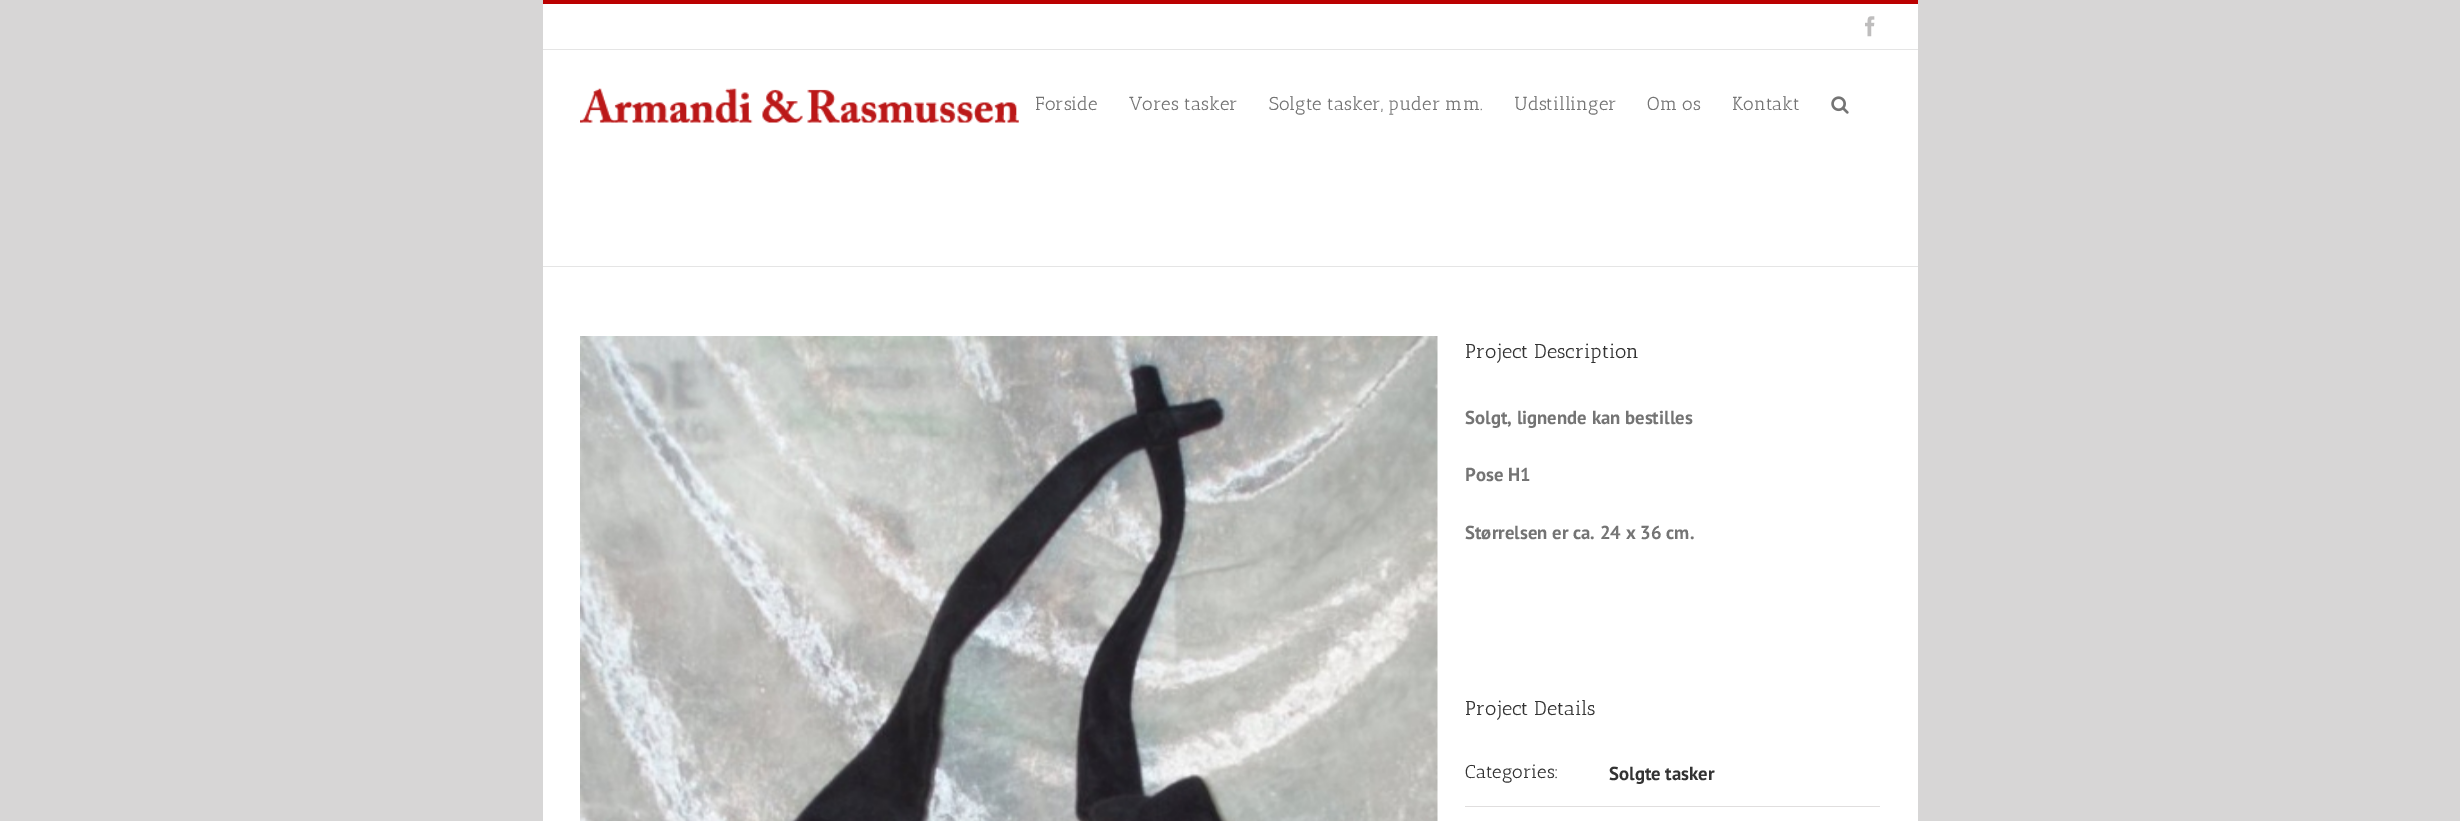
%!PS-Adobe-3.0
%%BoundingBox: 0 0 2460 821
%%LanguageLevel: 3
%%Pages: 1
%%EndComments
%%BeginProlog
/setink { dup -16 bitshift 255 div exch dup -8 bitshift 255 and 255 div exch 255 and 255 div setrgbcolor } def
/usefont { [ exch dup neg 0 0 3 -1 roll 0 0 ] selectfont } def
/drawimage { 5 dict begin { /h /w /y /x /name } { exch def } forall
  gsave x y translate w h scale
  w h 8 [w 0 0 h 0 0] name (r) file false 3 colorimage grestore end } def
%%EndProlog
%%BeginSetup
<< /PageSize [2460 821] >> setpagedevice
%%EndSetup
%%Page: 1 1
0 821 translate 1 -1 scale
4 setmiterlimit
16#D7D6D6 setink
0 0 2460 821 rectfill
[
    [543 4 1375 45 16#FFFFFF]
    [543 0 1375 4 16#BB0000]
    [543 49 1375 1 16#E5E5E5]
] { aload pop setink rectfill } forall
(img1.raw) 1865 16 10 21 drawimage
16#FFFFFF setink
543 50 1375 771 rectfill
16#E5E5E5 setink
543 266 1375 1 rectfill
(img2.raw) 580 88 439 35 drawimage
/AnticSlab-Regular 18.75 usefont
16#747474 setink
[
    [(Forside) 1035 110]
    [(Vores tasker) 1129 110]
    [(Solgte tasker, puder mm.) 1269 110]
    [(Udstillinger) 1514 110]
    [(Om os) 1647 110]
    [(Kontakt) 1732 110]
] { aload pop moveto show } forall
(img3.raw) 1831 96 18 18 drawimage
(img4.raw) 580 336 858 485 drawimage
/AnticSlab-Regular 20 usefont
16#333333 setink
1465 358 moveto (Project Description) show
/PTSans-Bold 18.75 usefont
16#747474 setink
[
    [(Solgt, lignende kan bestilles) 1465 424]
    [(Pose H1) 1465 481]
    [(Størrelsen er ca. 24 x 36 cm.) 1465 539]
] { aload pop moveto show } forall
/AnticSlab-Regular 20 usefont
16#333333 setink
1465 715 moveto (Project Details) show
16#E0DEDE setink
1465 806 415 1 rectfill
/AnticSlab-Regular 18.75 usefont
16#333333 setink
1465 778 moveto (Categories:) show
/PTSans-Bold 18.75 usefont
1609 780 moveto (Solgte tasker) show
showpage
%%EOF
